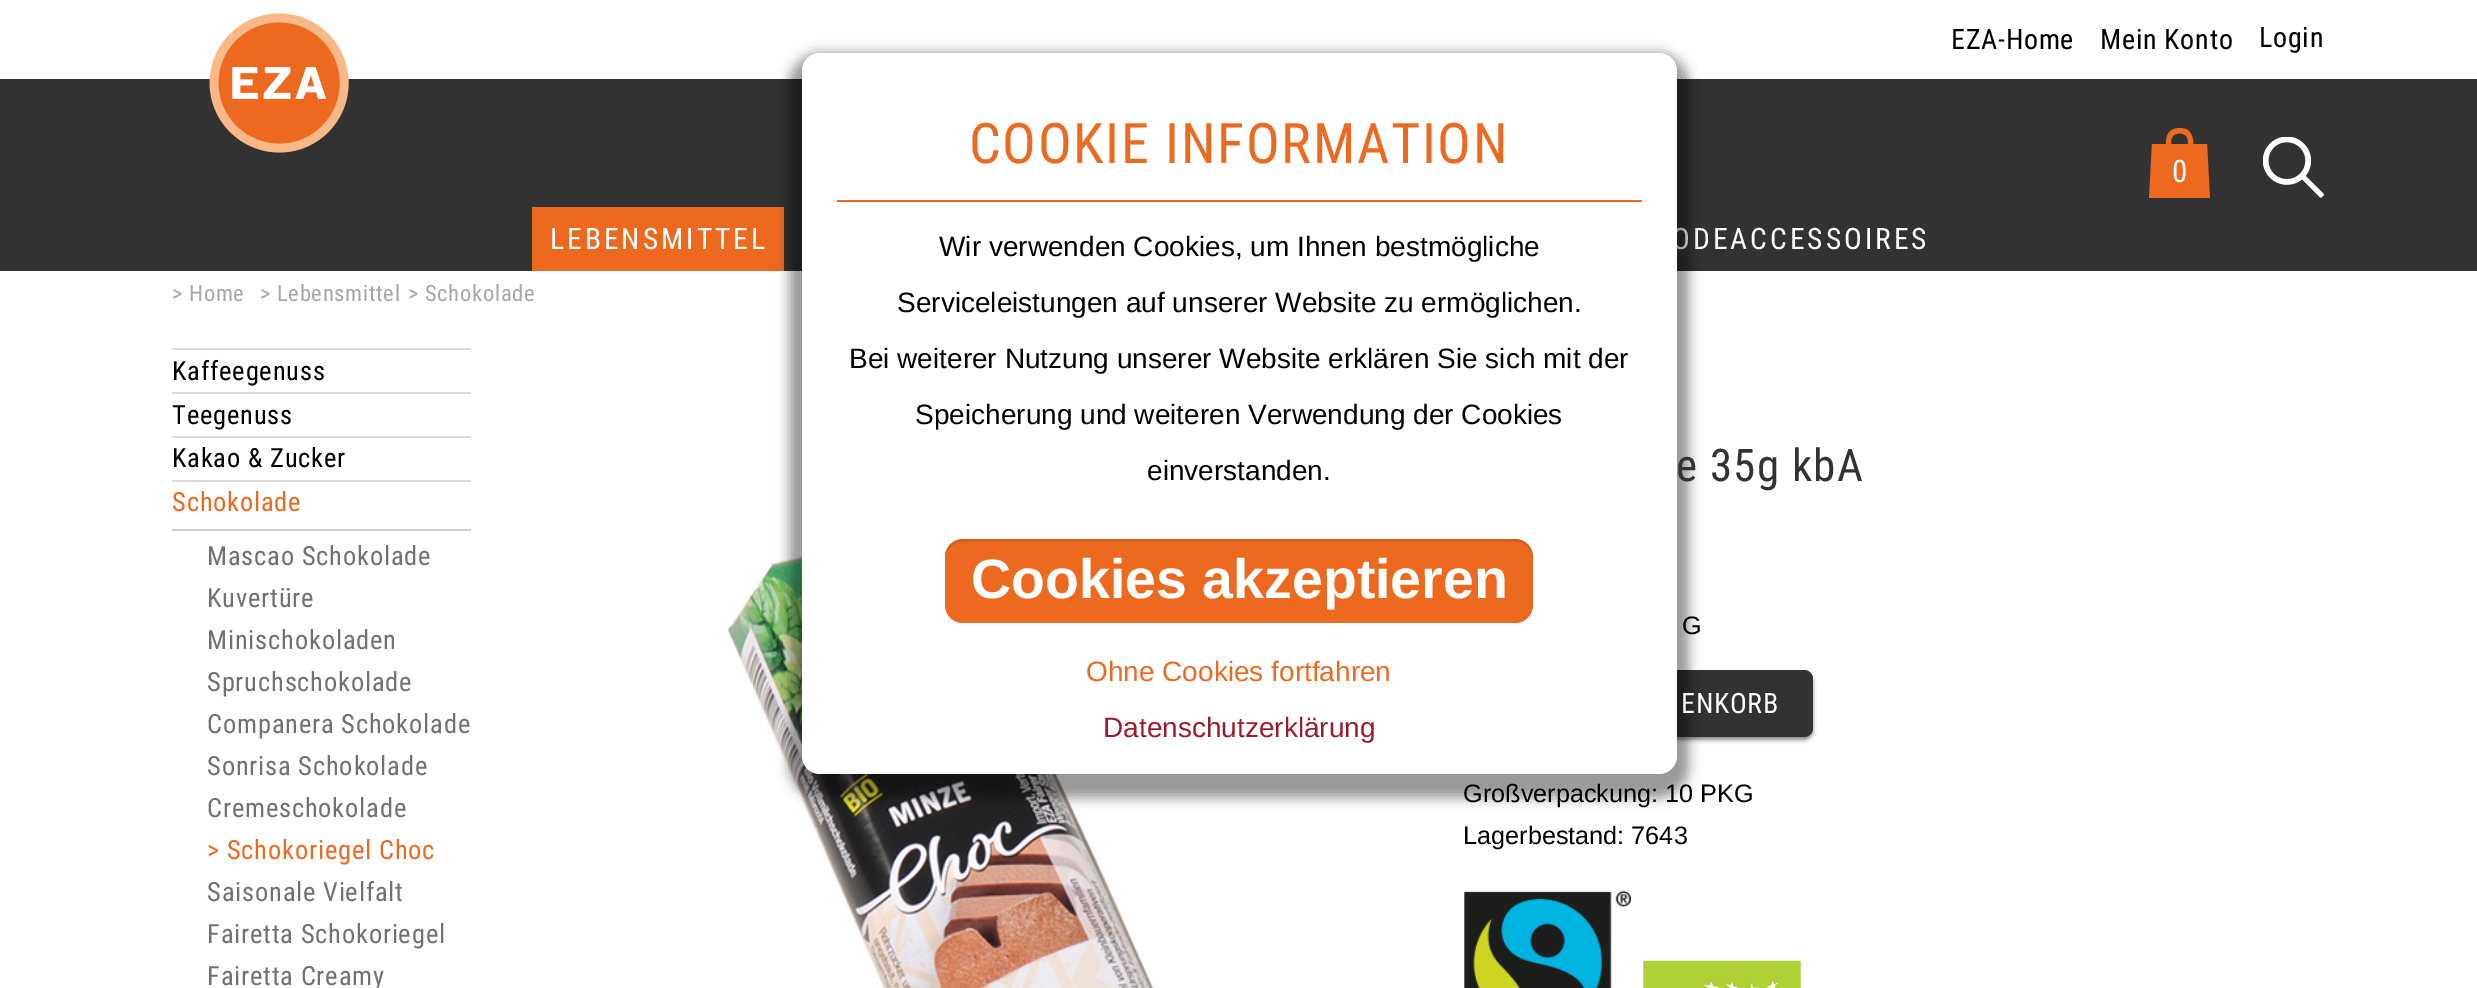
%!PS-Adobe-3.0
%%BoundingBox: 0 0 2477 988
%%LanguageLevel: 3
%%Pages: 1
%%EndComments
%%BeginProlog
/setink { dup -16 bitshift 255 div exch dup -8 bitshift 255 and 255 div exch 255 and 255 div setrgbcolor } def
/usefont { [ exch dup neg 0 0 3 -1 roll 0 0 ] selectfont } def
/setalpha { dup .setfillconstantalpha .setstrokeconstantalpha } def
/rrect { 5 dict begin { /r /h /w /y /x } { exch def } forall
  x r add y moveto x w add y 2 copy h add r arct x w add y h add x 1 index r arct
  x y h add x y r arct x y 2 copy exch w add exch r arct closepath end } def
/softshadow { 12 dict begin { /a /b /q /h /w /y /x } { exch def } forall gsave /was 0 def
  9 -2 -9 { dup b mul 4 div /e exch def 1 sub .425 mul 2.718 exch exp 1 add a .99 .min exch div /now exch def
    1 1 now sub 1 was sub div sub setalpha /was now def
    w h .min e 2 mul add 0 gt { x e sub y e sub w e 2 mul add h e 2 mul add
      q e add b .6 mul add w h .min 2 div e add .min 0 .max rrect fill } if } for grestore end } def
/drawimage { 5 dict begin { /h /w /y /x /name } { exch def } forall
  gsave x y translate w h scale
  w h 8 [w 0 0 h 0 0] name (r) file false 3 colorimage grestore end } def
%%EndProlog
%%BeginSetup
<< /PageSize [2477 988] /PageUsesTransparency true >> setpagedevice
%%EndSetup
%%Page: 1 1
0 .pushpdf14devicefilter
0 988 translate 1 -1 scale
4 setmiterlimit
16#FFFFFF setink
0 0 2477 988 rectfill
/RobotoCondensed-Regular 28 usefont
16#000000 setink
1951 49 moveto 0.75 0 (EZA-Home) ashow
2100 49 moveto 0.75 0 (Mein Konto) ashow
2259 47 moveto 0.75 0 (Login) ashow
16#323232 setink
0 79 2477 192 rectfill
(img1.raw) 209 13 140 140 drawimage
gsave
2149 128 61 70 rectclip
16#EC691F setink
2152 144 moveto 2166 144 lineto 2166 133 2170 128 2181 128 curveto 2186 129 lineto 2191 131 2194 139 2193 144 curveto 2207 144 lineto 2210 199 lineto 2149 199 lineto closepath 2171 144 moveto 2188 144 lineto 2188 141 2188 138 2186 136 curveto 2183 132 2175 133 2173 136 curveto 2171 139 2171 141 2171 144 curveto closepath fill
grestore
/RobotoCondensed-Regular 31 usefont
16#FFFFFF setink
2172 182 moveto 1 0 (0) ashow
(img2.raw) 2263 137 61 61 drawimage
16#EC691F setink
532 207 252 64 rectfill
/RobotoCondensed-Regular 29.5 usefont
16#FFFFFF setink
550 249 moveto 3 0 (LEBENSMITTEL) ashow
1672 249 moveto 3 0 (ODEACCESSOIRES) ashow
(img3.raw) 727 532 427 456 drawimage
16#000000 setink
1463 674 350 66 9 2 0.45 softshadow
16#323232 setink
1463 670 350 67 9 rrect fill
16#000000 setink
789 53 900 745 30 6 0.4 softshadow
16#FFFFFF setink
802 53 875 721 18 rrect fill
16#EC691F setink
837 200 805 2 rectfill
/RobotoCondensed-Regular 56 usefont
969 163 moveto 1.7 0 (COOKIE INFORMATION) ashow
/LiberationSans-Regular 28 usefont
16#000000 setink
[
    [(Wir verwenden Cookies, um Ihnen bestmögliche) 939 256]
    [(Serviceleistungen auf unserer Website zu ermöglichen.) 897 312]
    [(Bei weiterer Nutzung unserer Website erklären Sie sich mit der) 849 368]
    [(Speicherung und weiteren Verwendung der Cookies) 915 424]
    [(einverstanden.) 1147 480]
] { aload pop moveto show } forall
16#EC691F setink
945 539 588 84 18 rrect fill
0.1 setalpha
16#000000 setink
962 542 moveto 1516 542 lineto 1525 542 1533 550 1533 560 curveto 1533 557 lineto 1533 547 1525 539 1515 539 curveto 963 539 lineto 953 539 945 547 945 557 curveto 945 560 lineto 945 550 953 542 962 542 curveto closepath fill
/LiberationSans-Bold 55.5 usefont
1 setalpha
16#FFFFFF setink
971 598 moveto (Cookies akzeptieren) show
/LiberationSans-Regular 28 usefont
16#EC691F setink
1086 681 moveto (Ohne Cookies fortfahren) show
16#9D1A2C setink
1103 737 moveto (Datenschutzerklärung) show
/RobotoCondensed-Regular 22.5 usefont
16#A7A7A7 setink
172 301 moveto 0.7 0 (> Home) ashow
260 301 moveto 0.7 0 (> Lebensmittel) ashow
408 301 moveto 0.7 0 (> Schokolade) ashow
16#DBDBDB setink
172 348 299 2 rectfill
172 392 299 2 rectfill
/RobotoCondensed-Regular 26.5 usefont
16#000000 setink
172 380 moveto 0.8 0 (Kaffeegenuss) ashow
16#DBDBDB setink
172 436 299 2 rectfill
16#000000 setink
172 424 moveto 0.8 0 (Teegenuss) ashow
16#DBDBDB setink
172 480 299 2 rectfill
16#000000 setink
172 467 moveto 0.8 0 (Kakao & Zucker) ashow
16#EC691F setink
172 511 moveto 0.8 0 (Schokolade) ashow
16#CECECE setink
172 529 299 2 rectfill
16#717171 setink
207 565 moveto 0.8 0 (Mascao Schokolade) ashow
207 607 moveto 0.8 0 (Kuvertüre) ashow
207 649 moveto 0.8 0 (Minischokoladen) ashow
207 691 moveto 0.8 0 (Spruchschokolade) ashow
207 733 moveto 0.8 0 (Companera Schokolade) ashow
207 775 moveto 0.8 0 (Sonrisa Schokolade) ashow
207 817 moveto 0.8 0 (Cremeschokolade) ashow
16#EC691F setink
207 859 moveto 0.8 0 (> Schokoriegel Choc) ashow
16#717171 setink
207 901 moveto 0.8 0 (Saisonale Vielfalt) ashow
207 943 moveto 0.8 0 (Fairetta Schokoriegel) ashow
207 985 moveto 0.8 0 (Fairetta Creamy) ashow
/RobotoCondensed-Regular 45 usefont
16#323232 setink
1676 481 moveto 1.25 0 (e 35g kbA) ashow
/LiberationSans-Regular 25.25 usefont
16#000000 setink
1682 634 moveto (G) show
/RobotoCondensed-Regular 28 usefont
16#FFFFFF setink
1681 713 moveto 0.75 0 (ENKORB) ashow
/LiberationSans-Regular 25.25 usefont
16#000000 setink
1463 802 moveto (Großverpackung: 10 PKG) show
1463 844 moveto (Lagerbestand: 7643) show
(img4.raw) 1464 890 167 98 drawimage
(img5.raw) 1643 960 158 28 drawimage
.poppdf14devicefilter showpage
%%EOF
